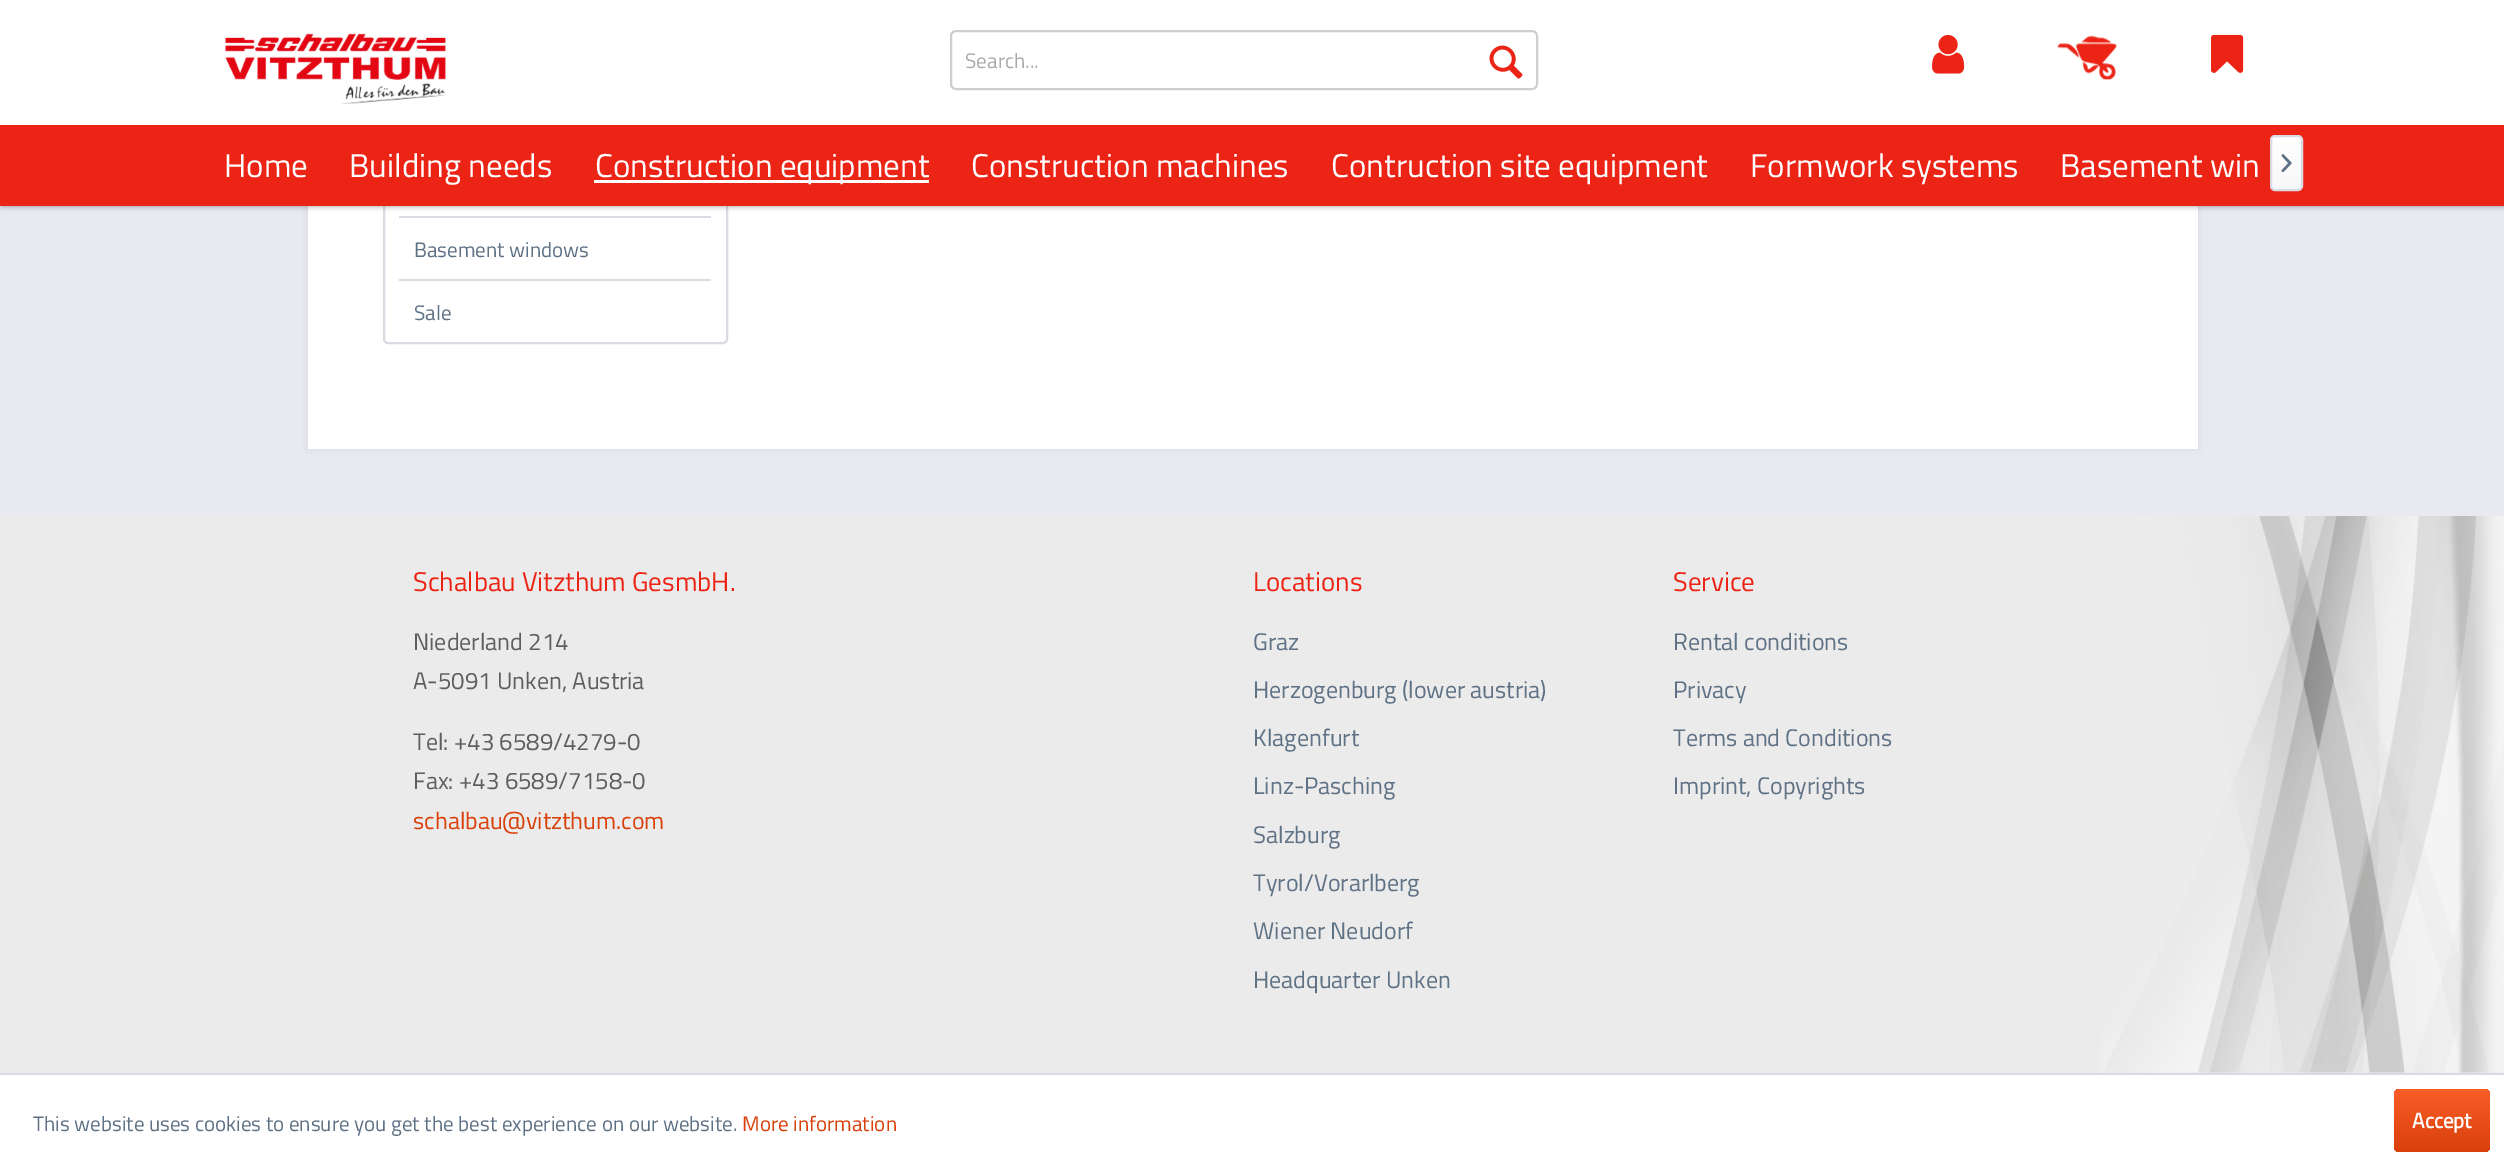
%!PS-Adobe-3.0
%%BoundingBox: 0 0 2504 1171
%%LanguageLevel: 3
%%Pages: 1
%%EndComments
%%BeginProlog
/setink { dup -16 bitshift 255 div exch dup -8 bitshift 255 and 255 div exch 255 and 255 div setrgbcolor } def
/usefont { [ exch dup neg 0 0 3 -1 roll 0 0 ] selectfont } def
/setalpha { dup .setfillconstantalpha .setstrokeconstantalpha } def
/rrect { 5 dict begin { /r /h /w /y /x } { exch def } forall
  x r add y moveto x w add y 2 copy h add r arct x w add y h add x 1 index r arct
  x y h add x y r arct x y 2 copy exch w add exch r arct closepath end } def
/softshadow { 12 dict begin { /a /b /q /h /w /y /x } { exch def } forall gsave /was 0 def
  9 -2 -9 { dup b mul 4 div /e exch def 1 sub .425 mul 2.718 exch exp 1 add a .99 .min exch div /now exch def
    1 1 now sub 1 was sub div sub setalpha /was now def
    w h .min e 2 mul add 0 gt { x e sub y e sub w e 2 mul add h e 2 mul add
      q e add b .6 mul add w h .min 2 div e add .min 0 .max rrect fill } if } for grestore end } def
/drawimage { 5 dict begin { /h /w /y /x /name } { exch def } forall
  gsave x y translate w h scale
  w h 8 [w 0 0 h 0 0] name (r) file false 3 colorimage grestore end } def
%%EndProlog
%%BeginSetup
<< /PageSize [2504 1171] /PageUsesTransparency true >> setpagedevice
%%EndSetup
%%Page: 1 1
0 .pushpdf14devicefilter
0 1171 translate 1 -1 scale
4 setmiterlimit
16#E9E9F0 setink
0 0 2504 1171 rectfill
16#DADAE5 setink
306 -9 1893 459 0 3 1 softshadow
16#FFFFFF setink
308 206 1890 243 rectfill
16#DADAE5 setink
2 setlinewidth
384 -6 343 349 4 rrect stroke
16#000000 setink
2 0 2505 206 0 3 0.4 softshadow
16#FFFFFF setink
0 0 2504 125 rectfill
(img1.raw) 225 33 221 72 drawimage
16#CECECE setink
951 31 586 58 5 rrect stroke
/TitilliumWeb-Regular 21 usefont
16#AAAAAA setink
965 68 moveto (Search...) show
(img2.raw) 1489 45 34 34 drawimage
(img3.raw) 1932 34 33 40 drawimage
(img4.raw) 2057 35 60 45 drawimage
(img5.raw) 2211 34 33 39 drawimage
16#EB2416 setink
0 125 2504 81 rectfill
/TitilliumWeb-Regular 33 usefont
16#FFFFFF setink
224 177 moveto (Home) show
349 177 moveto (Building needs) show
594 180 335 3 rectfill
[
    [(Construction equipment) 595 177]
    [(Construction machines) 971 177]
    [(Contruction site equipment) 1331 177]
    [(Formwork systems) 1750 177]
    [(Basement win) 2060 177]
] { aload pop moveto show } forall
gsave 2271 137 30 52 3 rrect clip newpath
<< /ShadingType 2 /ColorSpace /DeviceRGB /Coords [2286 137 2286 189] /Extend [true true] /Function << /FunctionType 2 /Domain [0 1] /C0 [1 1 1] /C1 [0.973 0.973 0.98] /N 1 >> >> shfill grestore
16#DADAE5 setink
2271 136 31 54 4 rrect stroke
(img6.raw) 2281 154 11 19 drawimage
399 216 312 2 rectfill
399 279 312 2 rectfill
/TitilliumWeb-Regular 21 usefont
16#5F7285 setink
414 257 moveto (Basement windows) show
414 320 moveto (Sale) show
16#EBEBEB setink
0 516 2504 557 rectfill
(img7.raw) 2100 516 404 557 drawimage
/TitilliumWeb-Regular 27 usefont
16#EB2416 setink
413 591 moveto (Schalbau Vitzthum GesmbH.) show
/TitilliumWeb-Regular 24 usefont
16#5E5E5E setink
[
    [(Niederland 214) 413 650]
    [(A-5091 Unken, Austria) 413 689]
    [(Tel: +43 6589/4279-0) 413 750]
    [(Fax: +43 6589/7158-0) 413 789]
] { aload pop moveto show } forall
16#D9400B setink
413 829 moveto (schalbau@vitzthum.com) show
/TitilliumWeb-Regular 27 usefont
16#EB2416 setink
1253 591 moveto (Locations) show
/TitilliumWeb-Regular 24 usefont
16#5F7285 setink
[
    [(Graz) 1253 650]
    [(Herzogenburg \(lower austria\)) 1253 698]
    [(Klagenfurt) 1253 746]
    [(Linz-Pasching) 1253 794]
    [(Salzburg) 1253 843]
    [(Tyrol/Vorarlberg) 1253 891]
    [(Wiener Neudorf) 1253 939]
    [(Headquarter Unken) 1253 988]
] { aload pop moveto show } forall
/TitilliumWeb-Regular 27 usefont
16#EB2416 setink
1673 591 moveto (Service) show
/TitilliumWeb-Regular 24 usefont
16#5F7285 setink
[
    [(Rental conditions) 1673 650]
    [(Privacy) 1673 698]
    [(Terms and Conditions) 1673 746]
    [(Imprint, Copyrights) 1673 794]
] { aload pop moveto show } forall
16#FFFFFF setink
0 1075 2504 96 rectfill
16#DADAE5 setink
0 1073 2504 2 rectfill
/TitilliumWeb-Regular 21 usefont
16#5F7285 setink
33 1131 moveto (This website uses cookies to ensure you get the best experience on our website.) show
16#D9400B setink
742 1131 moveto (More information) show
gsave 2394 1089 96 63 5 rrect clip newpath
<< /ShadingType 2 /ColorSpace /DeviceRGB /Coords [2442 1089 2442 1152] /Extend [true true] /Function << /FunctionType 2 /Domain [0 1] /C0 [0.98 0.365 0.153] /C1 [0.851 0.251 0.043] /N 1 >> >> shfill grestore
/TitilliumWeb-Bold 21 usefont
16#FFFFFF setink
2412 1128 moveto (Accept) show
.poppdf14devicefilter showpage
%%EOF
